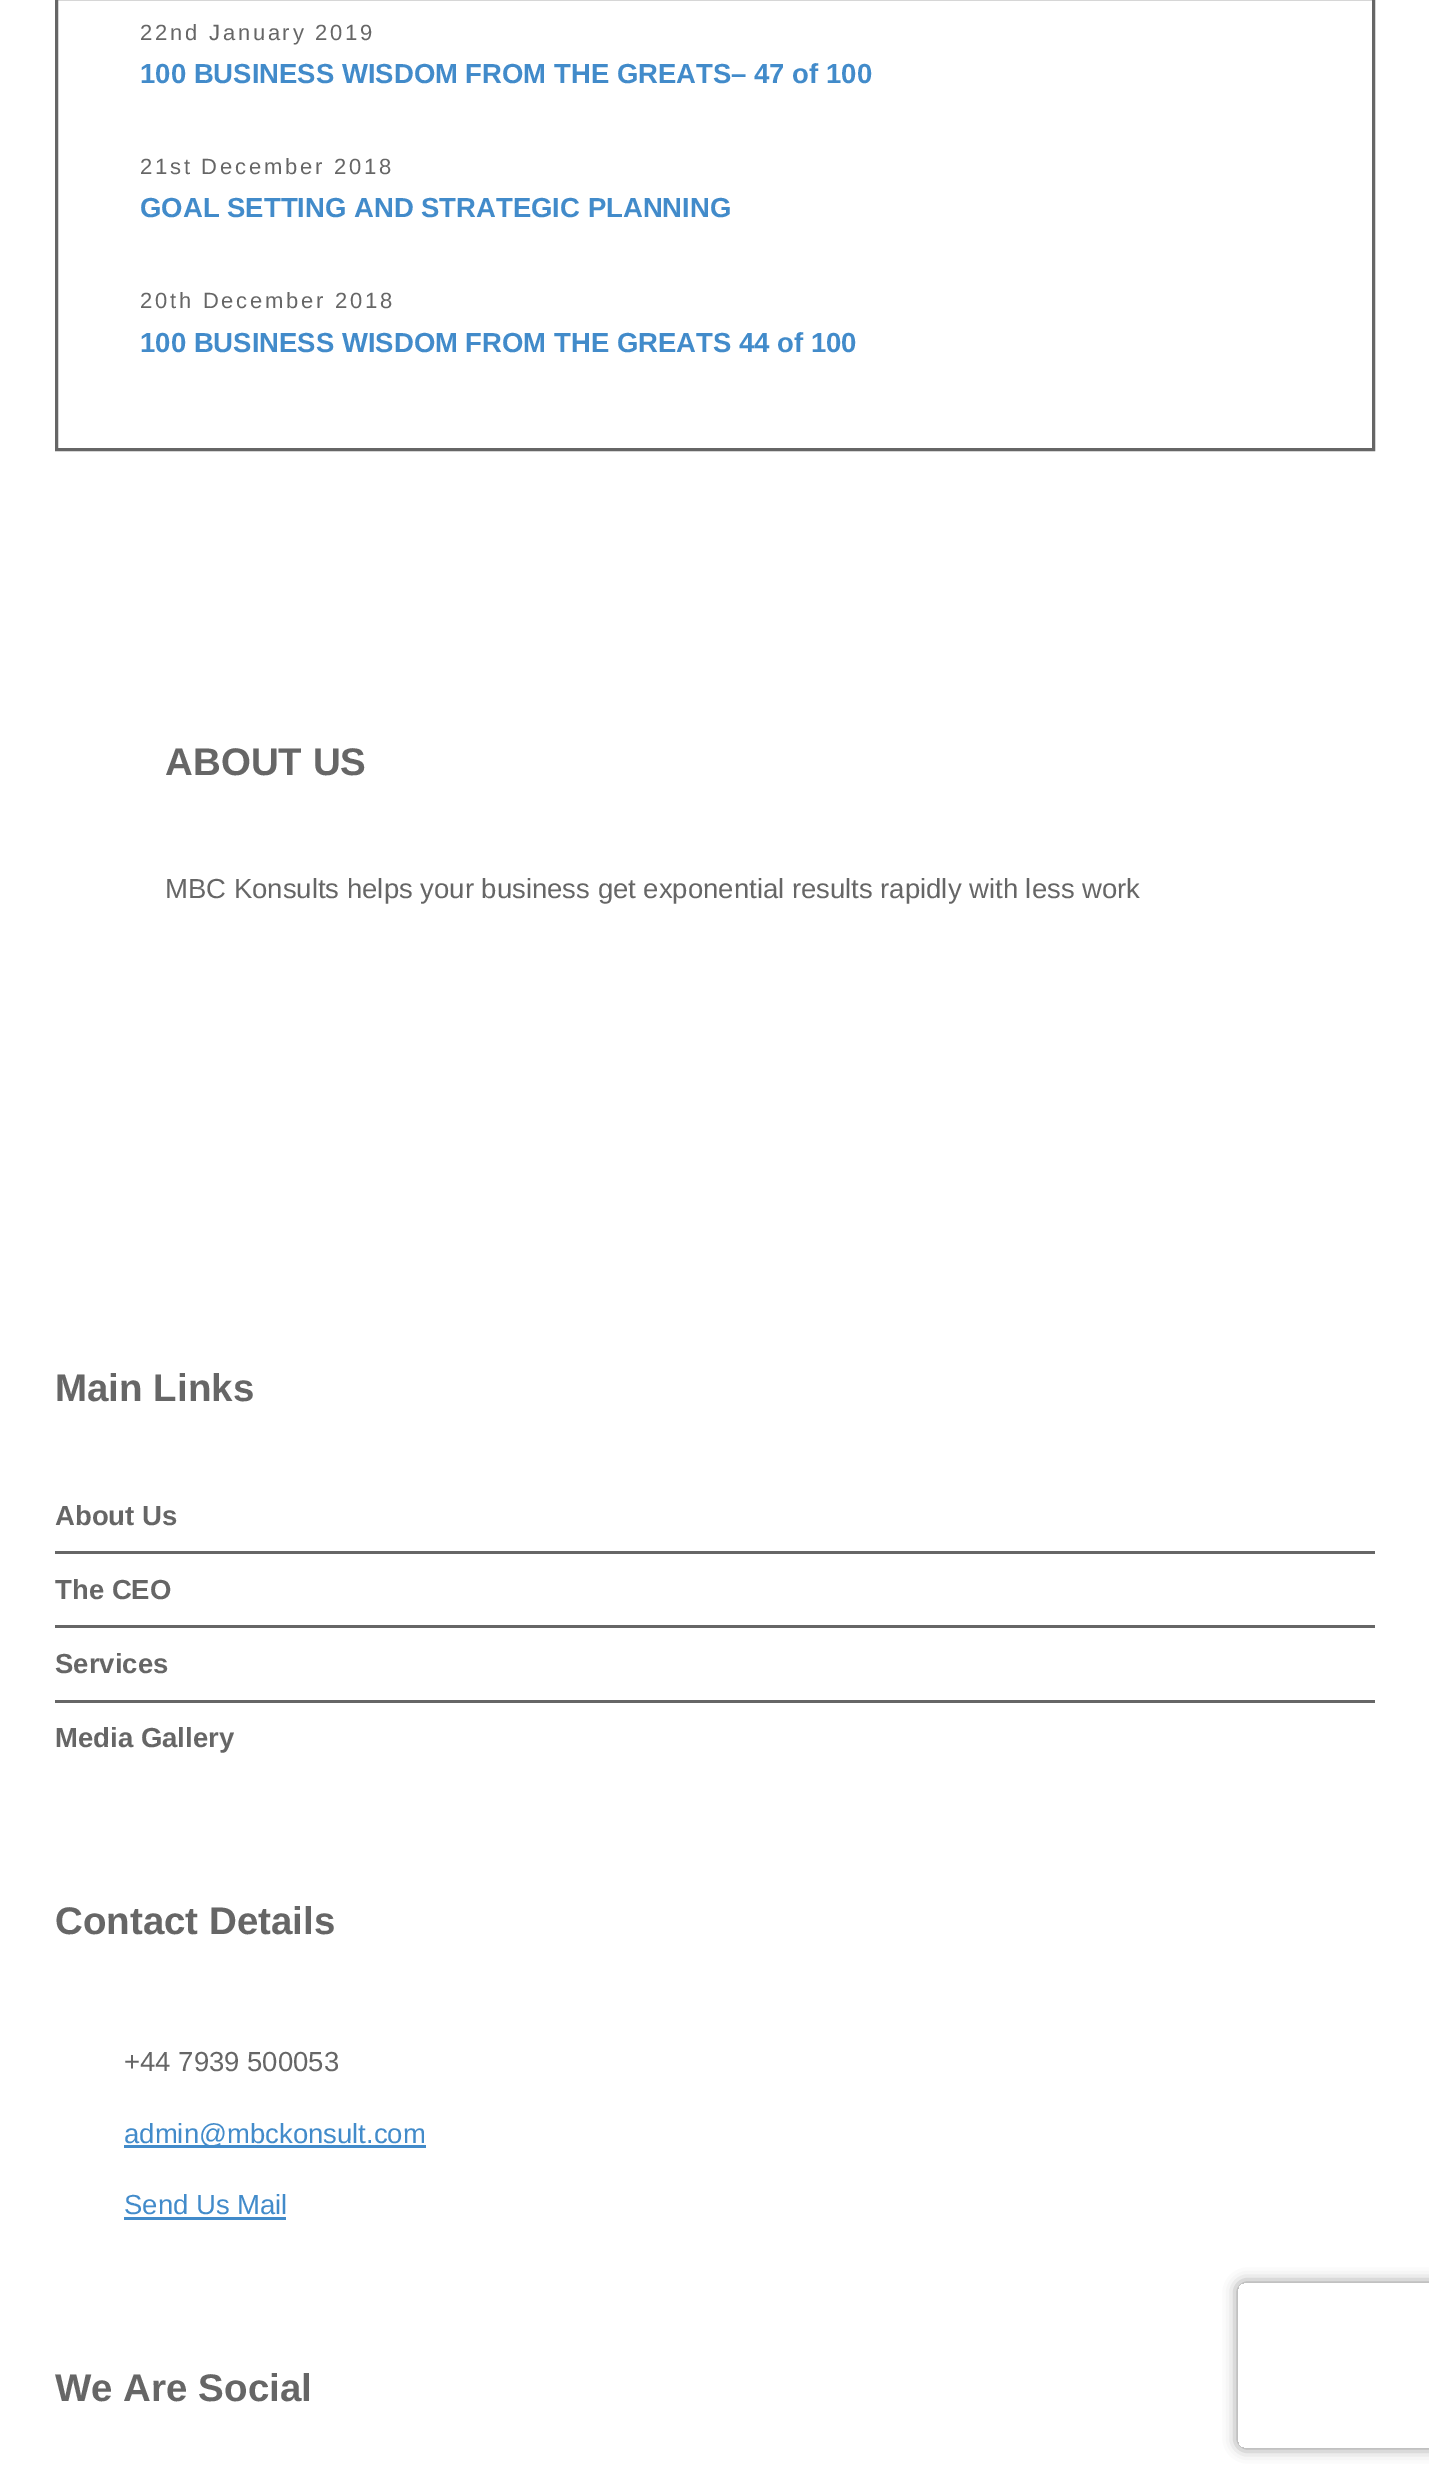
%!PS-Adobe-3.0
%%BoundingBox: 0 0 1429 2486
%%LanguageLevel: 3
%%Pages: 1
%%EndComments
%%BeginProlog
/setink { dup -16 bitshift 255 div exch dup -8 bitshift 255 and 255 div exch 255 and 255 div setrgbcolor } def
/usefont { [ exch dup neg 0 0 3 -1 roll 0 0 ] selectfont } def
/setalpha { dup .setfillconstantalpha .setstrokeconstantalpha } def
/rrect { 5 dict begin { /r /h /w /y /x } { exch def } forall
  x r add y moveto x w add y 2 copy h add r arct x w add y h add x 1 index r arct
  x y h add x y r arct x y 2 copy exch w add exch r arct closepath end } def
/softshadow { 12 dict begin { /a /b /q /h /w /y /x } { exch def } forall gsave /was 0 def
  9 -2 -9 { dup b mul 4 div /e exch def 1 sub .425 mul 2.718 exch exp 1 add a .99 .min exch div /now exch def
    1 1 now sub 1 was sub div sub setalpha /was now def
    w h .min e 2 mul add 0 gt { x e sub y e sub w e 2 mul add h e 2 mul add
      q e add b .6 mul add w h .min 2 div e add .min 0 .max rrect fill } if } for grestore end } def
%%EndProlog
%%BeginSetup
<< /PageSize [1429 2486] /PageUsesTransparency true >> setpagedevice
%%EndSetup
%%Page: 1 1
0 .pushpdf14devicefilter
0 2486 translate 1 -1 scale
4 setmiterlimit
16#FFFFFF setink
0 0 1429 2486 rectfill
16#666666 setink
3 setlinewidth
56.5 -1.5 1317 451 rectstroke
/LiberationSans-Regular 22 usefont
140 40 moveto 2.75 0 (22nd January 2019) ashow
/LiberationSans-Bold 27.5 usefont
16#428BCA setink
140 83 moveto (100 BUSINESS WISDOM FROM THE GREATS– 47 of 100) show
/LiberationSans-Regular 22 usefont
16#666666 setink
140 174 moveto 2.75 0 (21st December 2018) ashow
/LiberationSans-Bold 27.5 usefont
16#428BCA setink
140 217 moveto (GOAL SETTING AND STRATEGIC PLANNING) show
/LiberationSans-Regular 22 usefont
16#666666 setink
140 308 moveto 2.75 0 (20th December 2018) ashow
/LiberationSans-Bold 27.5 usefont
16#428BCA setink
140 352 moveto (100 BUSINESS WISDOM FROM THE GREATS 44 of 100) show
/LiberationSans-Bold 38.5 usefont
16#666666 setink
165 775 moveto (ABOUT US) show
/LiberationSans-Regular 27.5 usefont
165 898 moveto (MBC Konsults helps your business get exponential results rapidly with less work) show
/LiberationSans-Bold 38.5 usefont
55 1401 moveto (Main Links) show
55 1551 1320 3 rectfill
/LiberationSans-Bold 27.5 usefont
55 1525 moveto (About Us) show
55 1625 1320 3 rectfill
55 1599 moveto (The CEO) show
55 1700 1320 3 rectfill
55 1673 moveto (Services) show
55 1747 moveto (Media Gallery) show
/LiberationSans-Bold 38.5 usefont
55 1934 moveto (Contact Details) show
/LiberationSans-Regular 27.5 usefont
124 2071 moveto (+44 7939 500053) show
16#428BCA setink
124 2145 302 3 rectfill
124 2143 moveto (admin@mbckonsult.com) show
124 2214 moveto (Send Us Mail) show
124 2217 162 3 rectfill
/LiberationSans-Bold 38.5 usefont
16#666666 setink
55 2401 moveto (We Are Social) show
gsave
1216 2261 moveto 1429 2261 lineto 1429 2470 lineto 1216 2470 lineto closepath 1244 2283 moveto 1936 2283 lineto 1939.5 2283 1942 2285.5 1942 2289 curveto 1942 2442 lineto 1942 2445.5 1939.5 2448 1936 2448 curveto 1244 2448 lineto 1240.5 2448 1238 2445.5 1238 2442 curveto 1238 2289 lineto 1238 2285.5 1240.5 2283 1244 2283 curveto closepath eoclip newpath
16#808080 setink
1238 2283 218 165 6 7 1 softshadow
grestore
.poppdf14devicefilter showpage
%%EOF
